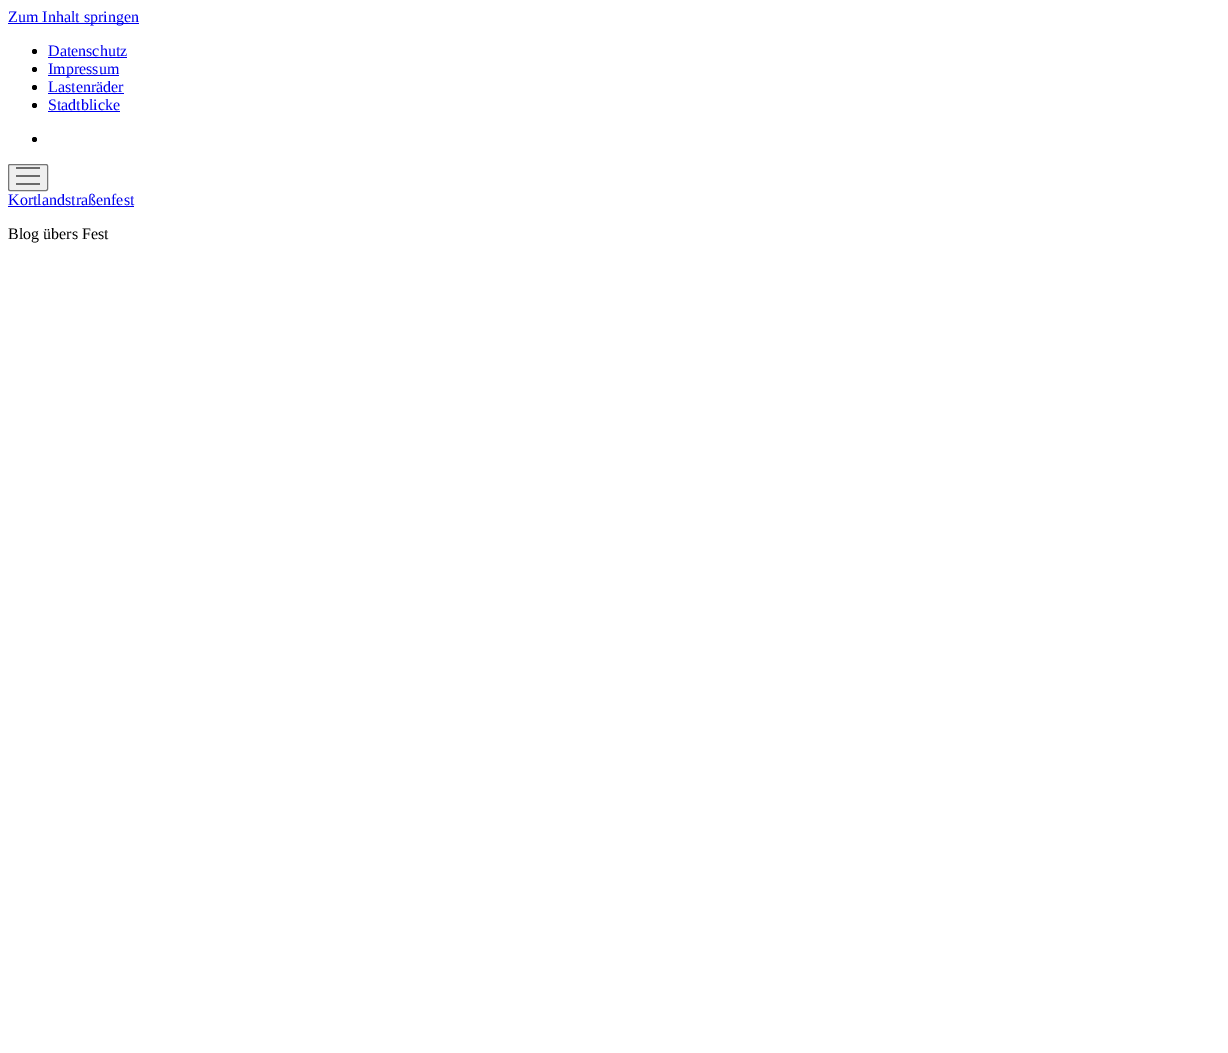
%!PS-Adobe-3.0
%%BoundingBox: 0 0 1228 1053
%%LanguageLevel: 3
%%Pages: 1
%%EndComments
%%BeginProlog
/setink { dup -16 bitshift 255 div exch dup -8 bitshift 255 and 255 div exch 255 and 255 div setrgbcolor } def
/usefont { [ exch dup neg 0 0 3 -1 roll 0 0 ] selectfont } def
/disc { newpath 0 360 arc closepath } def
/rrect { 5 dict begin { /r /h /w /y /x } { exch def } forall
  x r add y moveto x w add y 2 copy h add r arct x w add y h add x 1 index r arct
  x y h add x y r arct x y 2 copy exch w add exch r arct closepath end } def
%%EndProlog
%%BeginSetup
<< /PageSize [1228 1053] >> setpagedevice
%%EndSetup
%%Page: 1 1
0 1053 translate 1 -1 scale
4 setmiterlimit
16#FFFFFF setink
0 0 1228 1053 rectfill
16#0000EE setink
8 23 131 1 rectfill
/LiberationSerif-Regular 16 usefont
8 22 moveto (Zum Inhalt springen) show
16#000000 setink
34.5 51.5 2.5 disc fill
16#0000EE setink
48 56 moveto (Datenschutz) show
48 57 79 1 rectfill
16#000000 setink
34.5 69.5 2.5 disc fill
16#0000EE setink
48 75 71 1 rectfill
48 74 moveto (Impressum) show
16#000000 setink
34.5 87.5 2.5 disc fill
16#0000EE setink
48 92 moveto (Lastenräder) show
48 93 76 1 rectfill
16#000000 setink
34.5 105.5 2.5 disc fill
16#0000EE setink
48 110 moveto (Stadtblicke) show
48 111 72 1 rectfill
16#000000 setink
34.5 139.5 2.5 disc fill
16#EFEFEF setink
8.5 164.5 39 26 1.5 rrect gsave fill grestore
16#767676 setink
stroke
[
    [16 167 24 2 16#6B6B6B]
    [16 175 24 2 16#6B6B6B]
    [16 183 24 2 16#6B6B6B]
] { aload pop setink rectfill } forall
16#0000EE setink
8 205 moveto (Kortlandstraßenfest) show
8 206 126 1 rectfill
16#000000 setink
8 239 moveto (Blog übers Fest) show
showpage
%%EOF
